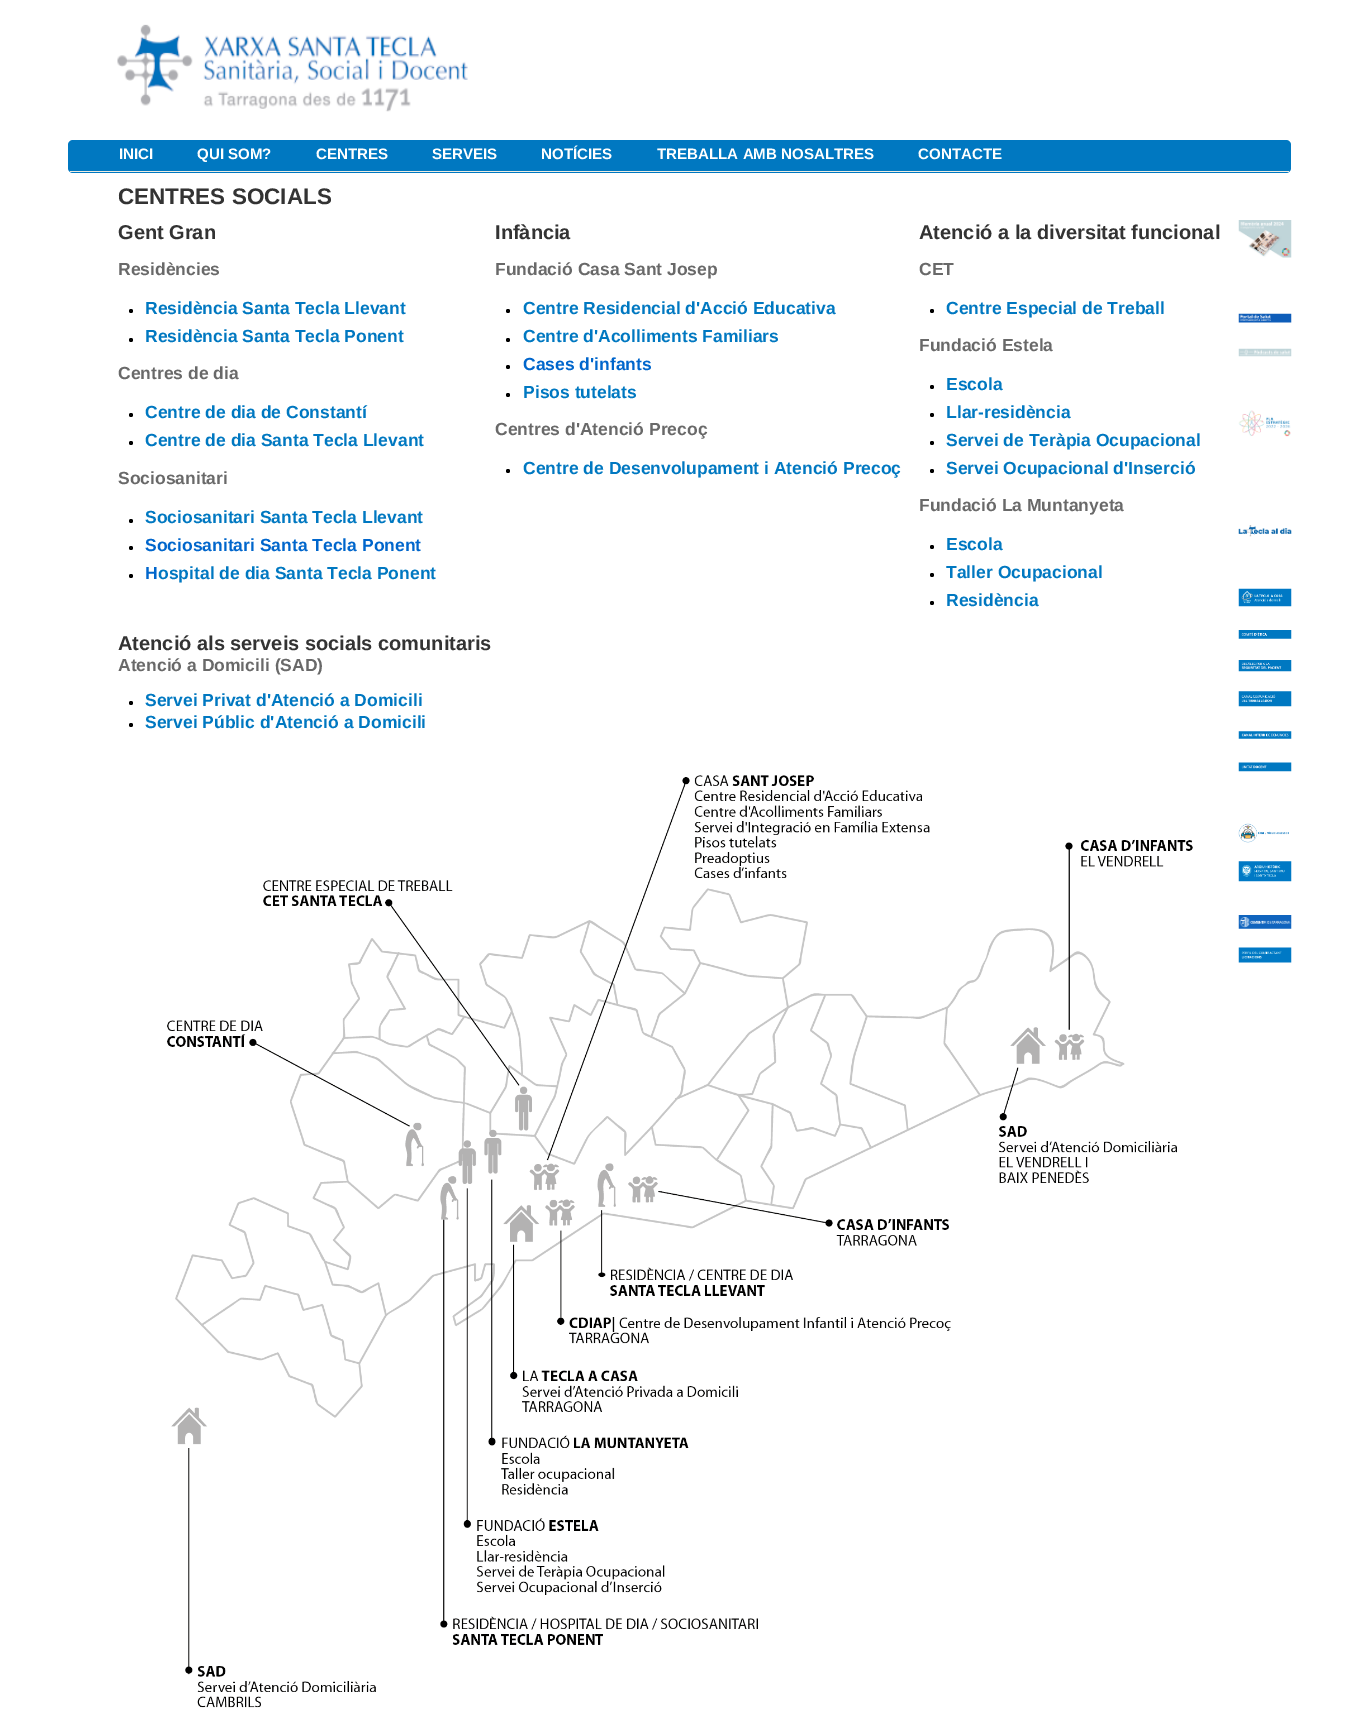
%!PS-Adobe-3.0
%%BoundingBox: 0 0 1358 1709
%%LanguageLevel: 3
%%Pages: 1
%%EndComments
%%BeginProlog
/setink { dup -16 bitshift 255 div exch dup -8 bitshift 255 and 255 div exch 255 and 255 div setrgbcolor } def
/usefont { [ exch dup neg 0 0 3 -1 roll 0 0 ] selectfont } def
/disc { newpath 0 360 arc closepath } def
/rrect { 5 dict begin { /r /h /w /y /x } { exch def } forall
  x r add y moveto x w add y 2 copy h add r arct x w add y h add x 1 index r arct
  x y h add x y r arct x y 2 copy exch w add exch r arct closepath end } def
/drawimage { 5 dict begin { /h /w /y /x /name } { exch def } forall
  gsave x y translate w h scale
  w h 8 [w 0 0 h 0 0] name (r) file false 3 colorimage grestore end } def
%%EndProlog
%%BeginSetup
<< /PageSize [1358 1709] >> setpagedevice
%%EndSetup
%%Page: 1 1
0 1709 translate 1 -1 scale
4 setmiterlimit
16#FFFFFF setink
0 0 1358 1709 rectfill
(img1.raw) 117 24 351 88 drawimage
16#0078C1 setink
68 140 1223 33 5 rrect fill
16#EEECE1 setink
70 171 1219 1 rectfill
/LiberationSans-Bold 15.1 usefont
16#FFFFFF setink
[
    [(INICI) 119 159]
    [(QUI SOM?) 197 159]
    [(CENTRES) 316 159]
    [(SERVEIS) 432 159]
    [(NOTÍCIES) 541 159]
    [(TREBALLA AMB NOSALTRES) 657 159]
    [(CONTACTE) 918 159]
] { aload pop moveto show } forall
/LiberationSans-Bold 22.5 usefont
16#333333 setink
118 204 moveto (CENTRES SOCIALS) show
/LiberationSans-Bold 20 usefont
118 239 moveto (Gent Gran) show
/LiberationSans-Bold 17.5 usefont
16#696969 setink
118 275 moveto (Residències) show
16#000000 setink
131 311 2 disc fill
16#0078C1 setink
145 314 moveto (Residència Santa Tecla Llevant) show
16#000000 setink
131 340 2 disc fill
16#0078C1 setink
145 342 moveto (Residència Santa Tecla Ponent) show
16#696969 setink
118 379 moveto (Centres de dia) show
16#000000 setink
131 415 2 disc fill
16#0078C1 setink
145 418 moveto (Centre de dia de Constantí) show
16#000000 setink
131 443 2 disc fill
16#0078C1 setink
145 446 moveto (Centre de dia Santa Tecla Llevant) show
16#696969 setink
118 484 moveto (Sociosanitari) show
16#000000 setink
131 521 2 disc fill
16#0078C1 setink
145 523 moveto (Sociosanitari Santa Tecla Llevant) show
16#000000 setink
131 548 2 disc fill
16#0066CC setink
145 551 moveto (Sociosanitari Santa Tecla Ponent) show
16#000000 setink
131 576 2 disc fill
16#0066CC setink
145 579 moveto (H) show
16#0078C1 setink
158 579 moveto (ospital de dia Santa Tecla Ponent) show
/LiberationSans-Bold 20 usefont
16#333333 setink
118 650 moveto (Atenció als serveis socials comunitaris) show
/LiberationSans-Bold 17.5 usefont
16#696969 setink
118 671 moveto (Atenció a Domicili \(SAD\)) show
16#000000 setink
131 703 2 disc fill
16#0078C1 setink
145 706 moveto (Servei Privat d'Atenció a Domicili) show
16#000000 setink
131 725 2 disc fill
16#0078C1 setink
145 728 moveto (Servei Públic d'Atenció a Domicili) show
/LiberationSans-Bold 20 usefont
16#333333 setink
495 239 moveto (Infància) show
/LiberationSans-Bold 17.5 usefont
16#696969 setink
495 275 moveto (Fundació Casa Sant Josep) show
16#000000 setink
508 311 2 disc fill
16#0078C1 setink
523 314 moveto (Centre Residencial d'Acció Educativa) show
16#000000 setink
508 340 2 disc fill
16#0078C1 setink
523 342 moveto (Centre d'Acolliments Familiars) show
16#000000 setink
508 367 2 disc fill
16#0066CC setink
523 370 moveto (Cases d'infants) show
16#000000 setink
508 395 2 disc fill
16#0078C1 setink
523 398 moveto (Pisos tutelats) show
16#696969 setink
495 435 moveto (Centres d'Atenció Precoç) show
16#000000 setink
508 471 2 disc fill
16#0078C1 setink
523 474 moveto (Centre de Desenvolupament i Atenció Precoç) show
/LiberationSans-Bold 20 usefont
16#333333 setink
919 239 moveto (Atenció a la diversitat funcional) show
/LiberationSans-Bold 17.5 usefont
16#696969 setink
919 275 moveto (CET) show
16#000000 setink
932 311 2 disc fill
16#0078C1 setink
946 314 moveto (Centre Especial de Treball) show
16#696969 setink
919 351 moveto (Fundació Estela) show
16#000000 setink
932 387 2 disc fill
16#0078C1 setink
946 390 moveto (Escola) show
16#000000 setink
932 415 2 disc fill
16#0078C1 setink
946 418 moveto (Llar-residència) show
16#000000 setink
932 443 2 disc fill
16#0078C1 setink
946 446 moveto (Servei de Teràpia Ocupacional) show
16#000000 setink
932 471 2 disc fill
16#0078C1 setink
946 474 moveto (Servei Ocupacional d'Inserció) show
16#696969 setink
919 511 moveto (Fundació La Muntanyeta) show
16#000000 setink
932 547 2 disc fill
16#0078C1 setink
946 550 moveto (Escola) show
16#000000 setink
932 575 2 disc fill
16#0078C1 setink
946 578 moveto (Taller Ocupacional) show
16#000000 setink
932 603 2 disc fill
16#0078C1 setink
946 606 moveto (Residència) show
(img2.raw) 167 775 1026 933 drawimage
(img3.raw) 1238 220 54 38 drawimage
(img4.raw) 1238 313 54 10 drawimage
(img5.raw) 1238 348 54 9 drawimage
(img6.raw) 1238 410 53 27 drawimage
(img7.raw) 1238 525 54 12 drawimage
(img8.raw) 1238 588 54 19 drawimage
(img9.raw) 1238 630 54 9 drawimage
(img10.raw) 1238 660 54 12 drawimage
(img11.raw) 1238 691 54 16 drawimage
(img12.raw) 1238 731 54 8 drawimage
(img13.raw) 1238 762 54 10 drawimage
(img14.raw) 1238 823 51 20 drawimage
(img15.raw) 1238 861 54 21 drawimage
(img16.raw) 1238 915 54 14 drawimage
(img17.raw) 1238 947 54 16 drawimage
showpage
%%EOF
